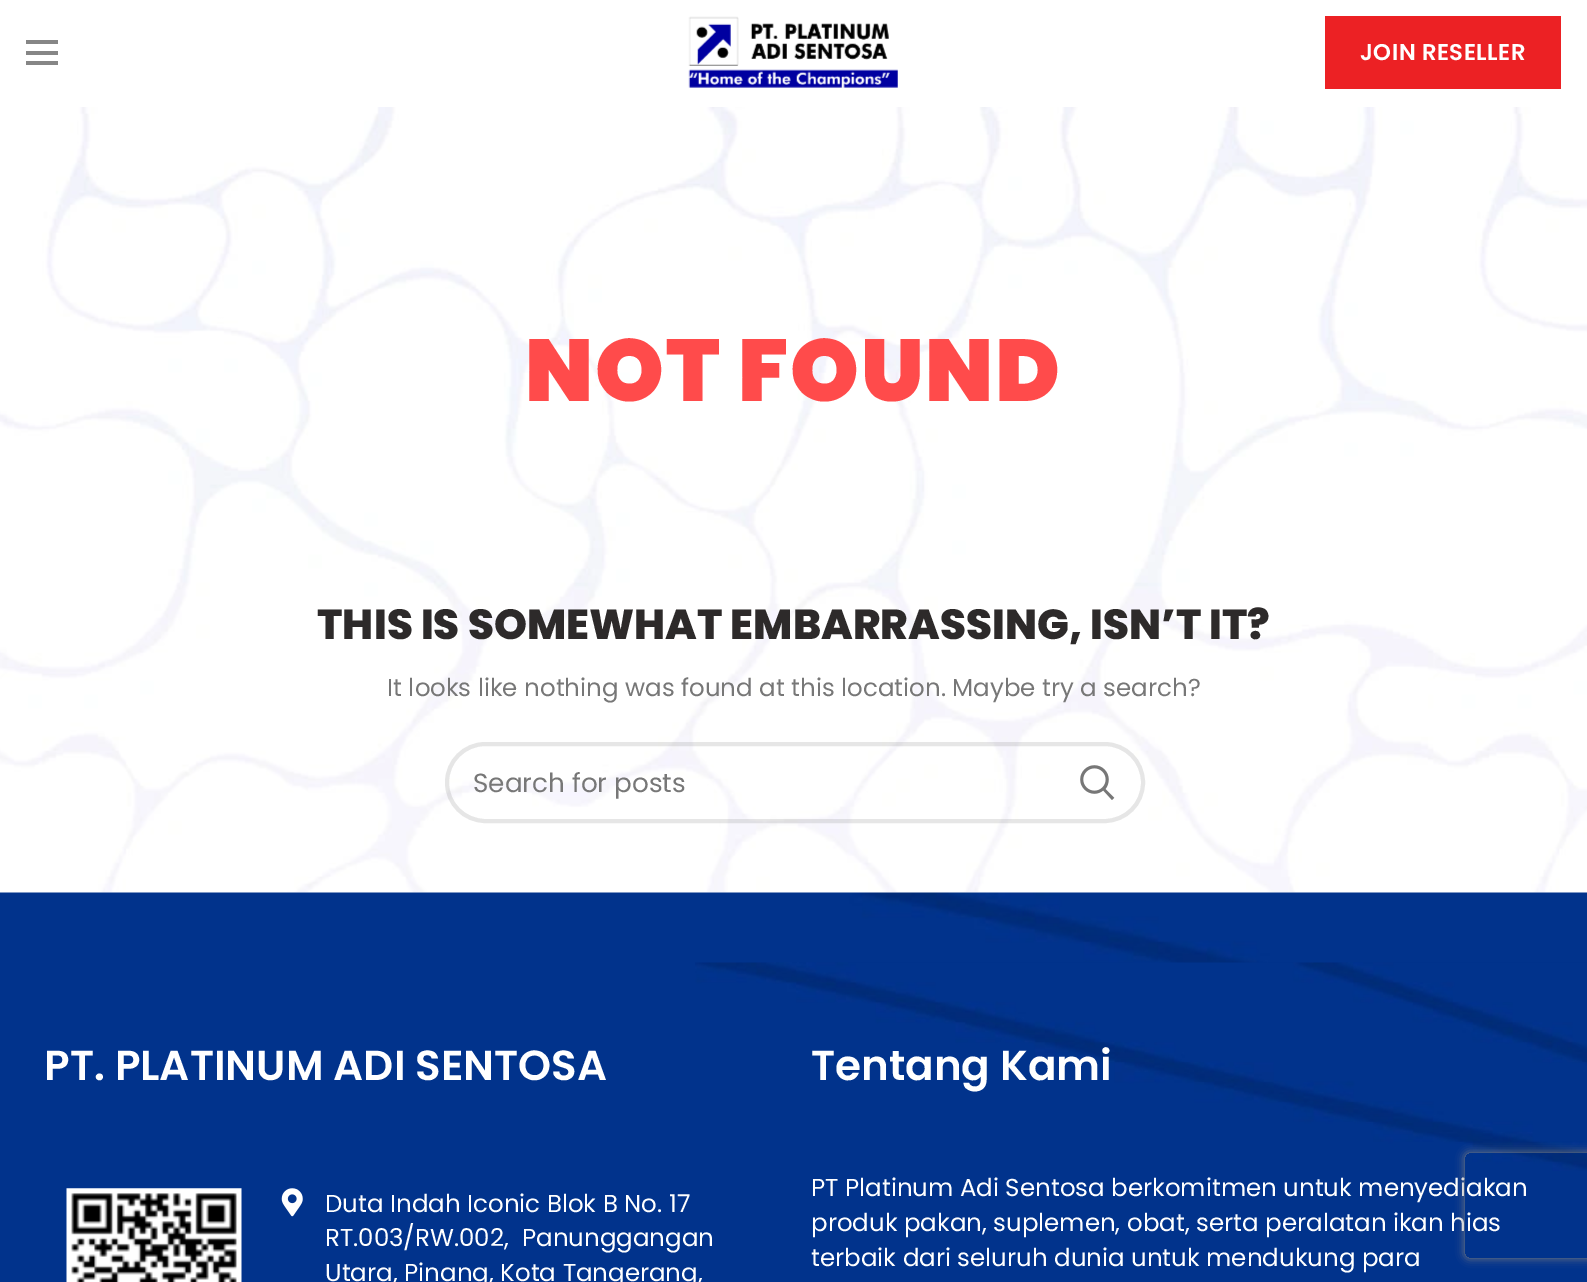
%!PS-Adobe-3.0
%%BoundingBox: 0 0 1587 1282
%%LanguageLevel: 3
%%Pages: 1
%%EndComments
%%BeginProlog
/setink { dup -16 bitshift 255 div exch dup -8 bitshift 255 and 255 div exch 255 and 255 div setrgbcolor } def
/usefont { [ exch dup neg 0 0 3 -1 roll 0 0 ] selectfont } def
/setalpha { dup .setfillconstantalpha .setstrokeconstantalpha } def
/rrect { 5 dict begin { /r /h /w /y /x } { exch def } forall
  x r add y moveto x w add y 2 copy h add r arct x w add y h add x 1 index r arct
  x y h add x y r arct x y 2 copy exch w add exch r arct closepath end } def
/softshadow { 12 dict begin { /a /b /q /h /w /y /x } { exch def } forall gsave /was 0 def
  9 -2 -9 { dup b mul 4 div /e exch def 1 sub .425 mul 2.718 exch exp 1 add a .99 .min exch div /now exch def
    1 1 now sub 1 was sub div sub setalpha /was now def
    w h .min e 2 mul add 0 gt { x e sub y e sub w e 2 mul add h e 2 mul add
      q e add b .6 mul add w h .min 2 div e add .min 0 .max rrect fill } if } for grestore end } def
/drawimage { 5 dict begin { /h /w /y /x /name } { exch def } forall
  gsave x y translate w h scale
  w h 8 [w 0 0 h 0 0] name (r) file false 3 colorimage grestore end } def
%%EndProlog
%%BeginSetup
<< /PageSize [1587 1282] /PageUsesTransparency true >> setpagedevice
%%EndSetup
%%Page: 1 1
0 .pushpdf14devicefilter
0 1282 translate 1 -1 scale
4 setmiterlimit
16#FFFFFF setink
0 0 1587 1282 rectfill
[
    [26 51 32 4 16#868686]
    [26 40 32 4 16#868686]
    [26 61 32 4 16#868686]
] { aload pop setink rectfill } forall
(img1.raw) 688 16 210 72 drawimage
16#EC2124 setink
1325 16 236 73 rectfill
/Poppins-SemiBold 22.75 usefont
16#FFFFFF setink
1360 60 moveto 0.5 0 (JOIN RESELLER) ashow
(img2.raw) 0 107 1587 786 drawimage
/Poppins-Black 87.5 usefont
16#FF4B4B setink
525 401 moveto 1.75 0 (NOT FOUND) ashow
/Poppins-ExtraBold 42 usefont
16#2D2A2A setink
317 639 moveto (THIS IS SOMEWHAT EMBARRASSING, ISN’T IT?) show
/Poppins-Regular 24.5 usefont
16#777777 setink
387 696 moveto (It looks like nothing was found at this location. Maybe try a search?) show
0.2 setalpha
16#818181 setink
4 setlinewidth
447 744 696 77 38.5 rrect stroke
/Poppins-Regular 26.25 usefont
1 setalpha
16#777777 setink
473 792 moveto (Search for posts) show
(img3.raw) 1080 765 35 35 drawimage
(img4.raw) 0 892 1587 390 drawimage
(img5.raw) 695 962 892 209 drawimage
/Poppins-SemiBold 42 usefont
16#FFFFFF setink
44 1080 moveto (PT. PLATINUM ADI SENTOSA) show
(img6.raw) 66 1188 176 94 drawimage
(img7.raw) 281 1188 22 29 drawimage
/Poppins-Regular 24.5 usefont
[
    [(Duta Indah Iconic Blok B No. 17) 325 1212]
    [(RT.003/RW.002,  Panunggangan) 325 1246]
    [(Utara, Pinang, Kota Tangerang,) 325 1281]
] { aload pop moveto show } forall
/Poppins-SemiBold 42 usefont
811 1080 moveto (Tentang Kami) show
/Poppins-Regular 24.5 usefont
[
    [(PT Platinum Adi Sentosa berkomitmen untuk menyediakan) 811 1196]
    [(produk pakan, suplemen, obat, serta peralatan ikan hias) 811 1231]
    [(terbaik dari seluruh dunia untuk mendukung para) 811 1266]
] { aload pop moveto show } forall
gsave
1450 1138 moveto 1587 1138 lineto 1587 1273 lineto 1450 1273 lineto closepath 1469 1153 moveto 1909 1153 lineto 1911 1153 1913 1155 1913 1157 curveto 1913 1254 lineto 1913 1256 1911 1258 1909 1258 curveto 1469 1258 lineto 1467 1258 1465 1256 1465 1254 curveto 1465 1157 lineto 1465 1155 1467 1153 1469 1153 curveto closepath eoclip newpath
16#808080 setink
1465 1153 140 105 4 4.5 1 softshadow
grestore
.poppdf14devicefilter showpage
%%EOF
